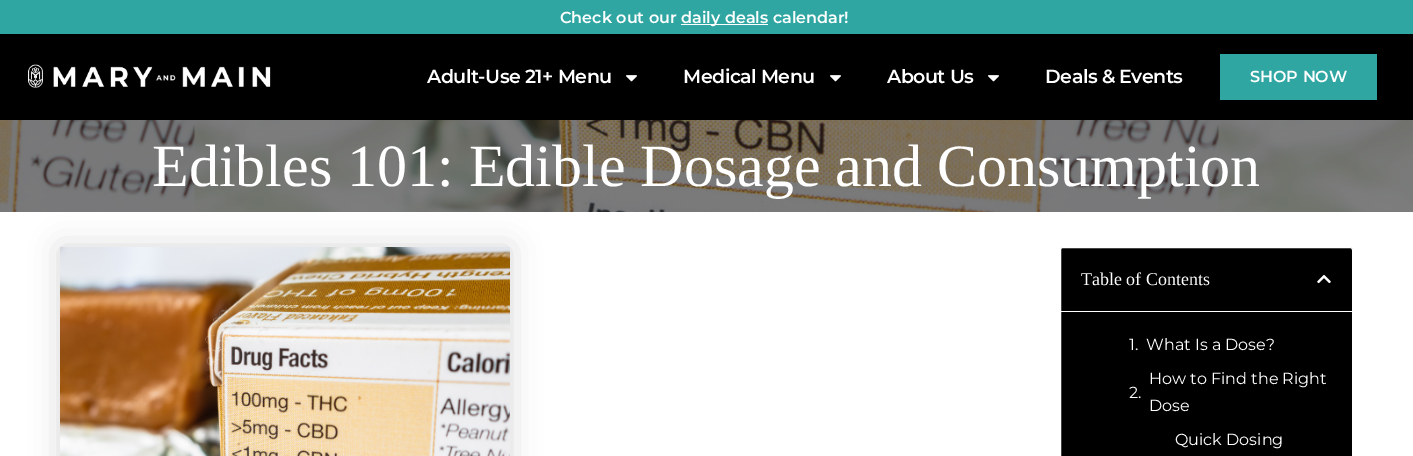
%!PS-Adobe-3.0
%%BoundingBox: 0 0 1413 456
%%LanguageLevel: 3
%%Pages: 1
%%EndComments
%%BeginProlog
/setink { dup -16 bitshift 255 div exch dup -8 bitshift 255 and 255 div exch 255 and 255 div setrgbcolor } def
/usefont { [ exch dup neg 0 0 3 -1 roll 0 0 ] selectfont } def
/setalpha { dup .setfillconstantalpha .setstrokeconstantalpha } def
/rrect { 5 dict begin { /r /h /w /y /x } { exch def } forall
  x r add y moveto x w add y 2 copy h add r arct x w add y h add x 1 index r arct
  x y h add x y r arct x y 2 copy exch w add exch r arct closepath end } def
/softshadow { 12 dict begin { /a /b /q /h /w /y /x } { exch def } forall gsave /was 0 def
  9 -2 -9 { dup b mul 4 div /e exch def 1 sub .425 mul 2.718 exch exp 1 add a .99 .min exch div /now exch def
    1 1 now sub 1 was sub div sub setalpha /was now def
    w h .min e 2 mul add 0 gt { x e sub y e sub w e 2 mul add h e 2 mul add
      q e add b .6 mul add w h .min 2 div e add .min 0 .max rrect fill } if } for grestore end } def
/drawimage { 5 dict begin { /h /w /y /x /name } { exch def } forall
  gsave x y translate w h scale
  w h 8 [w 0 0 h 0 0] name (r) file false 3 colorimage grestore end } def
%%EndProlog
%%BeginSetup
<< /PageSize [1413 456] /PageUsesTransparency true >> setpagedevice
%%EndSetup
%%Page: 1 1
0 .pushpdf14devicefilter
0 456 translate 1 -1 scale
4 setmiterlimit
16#FFFFFF setink
0 0 1413 456 rectfill
16#2FA6A2 setink
0 0 1413 34 rectfill
/Montserrat-SemiBold 16 usefont
16#FFFFFF setink
560 23 moveto (Check out our) show
681 24 87 1 rectfill
681 23 moveto (daily deals calendar!) show
16#000000 setink
0 34 1413 86 rectfill
(img1.raw) 28 64 243 24 drawimage
/Montserrat-SemiBold 19 usefont
16#FFFFFF setink
427 83 moveto -0.5 0 (Adult-Use 21+ Menu) ashow
(img2.raw) 626 75 11 7 drawimage
683 83 moveto -0.5 0 (Medical Menu) ashow
(img2.raw) 830 75 11 7 drawimage
887 83 moveto -0.5 0 (About Us) ashow
(img2.raw) 988 75 11 7 drawimage
1045 83 moveto -0.5 0 (Deals & Events) ashow
16#2FA6A2 setink
1220 54 157 46 rectfill
/Montserrat-SemiBold 16 usefont
16#FFFFFF setink
1250 82 moveto (SHOP NOW) show
(img3.raw) 0 120 1413 92 drawimage
/LiberationSerif-Regular 60 usefont
152 186 moveto (Edibles 101: Edible Dosage and Consumption) show
16#000000 setink
60 247 450 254 0 15 0.15 softshadow
(img4.raw) 60 247 450 209 drawimage
1060.5 247.5 292 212 2.5 rrect gsave fill grestore
16#FFFFFF setink
stroke
1061 311 291 1 rectfill
/LiberationSerif-Regular 18 usefont
1081 285 moveto (Table of Contents) show
(img5.raw) 1317 274 14 10 drawimage
/Montserrat-Regular 16 usefont
[
    [(1.) 1129 350]
    [(What Is a Dose?) 1146 350]
    [(2.) 1129 398]
    [(How to Find the Right) 1149 384]
    [(Dose) 1149 411]
    [(Quick Dosing) 1175 445]
] { aload pop moveto show } forall
.poppdf14devicefilter showpage
%%EOF
